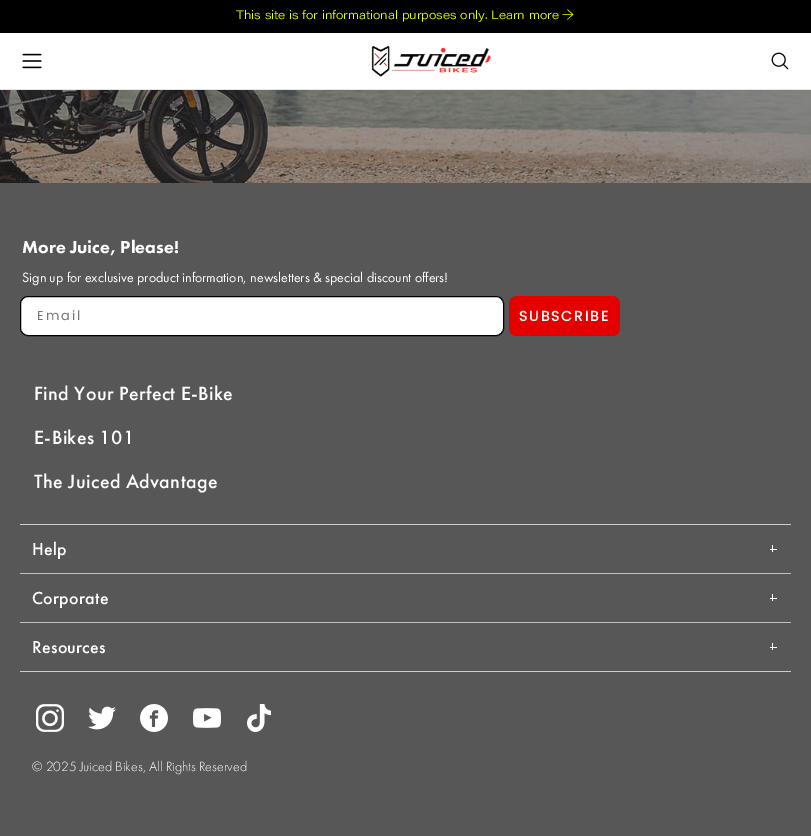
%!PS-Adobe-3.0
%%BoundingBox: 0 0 811 836
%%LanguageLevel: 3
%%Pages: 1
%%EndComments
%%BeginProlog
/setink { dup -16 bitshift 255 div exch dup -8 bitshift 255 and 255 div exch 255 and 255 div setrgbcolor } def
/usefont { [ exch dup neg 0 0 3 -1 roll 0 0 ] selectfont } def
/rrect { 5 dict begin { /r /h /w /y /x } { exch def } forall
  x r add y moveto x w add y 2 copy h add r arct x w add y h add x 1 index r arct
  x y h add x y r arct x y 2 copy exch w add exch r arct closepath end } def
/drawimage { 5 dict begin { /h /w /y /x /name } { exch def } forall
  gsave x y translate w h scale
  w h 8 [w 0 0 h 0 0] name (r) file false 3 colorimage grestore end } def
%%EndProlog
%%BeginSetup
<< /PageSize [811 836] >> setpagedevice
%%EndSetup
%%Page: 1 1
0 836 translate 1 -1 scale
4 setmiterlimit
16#575757 setink
0 0 811 836 rectfill
16#000000 setink
0 0 811 33 rectfill
/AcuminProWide-Light 12 usefont
16#E9FF00 setink
236 19 moveto (This site is for informational purposes only. Learn more →) show
16#FFFFFF setink
0 33 811 56 rectfill
16#E6E6E6 setink
0 89 811 1 rectfill
(img1.raw) 22 53 20 16 drawimage
(img2.raw) 371 45 120 32 drawimage
(img3.raw) 771 52 18 18 drawimage
(img4.raw) 0 90 811 93 drawimage
/FuturaPT-Black 18 usefont
16#FFFFFF setink
22 253 moveto (More Juice, Please!) show
/FuturaPT-Regular 14 usefont
22 282 moveto (Sign up for exclusive product information, newsletters & special discount offers!) show
20.5 296.5 483 39 7.5 rrect gsave fill grestore
16#000000 setink
stroke
/Poppins-Regular 13 usefont
16#767676 setink
37 320 moveto 2 0 (Email) ashow
16#E50000 setink
509 296 111 40 8 rrect fill
/Poppins-Bold 14 usefont
16#FFFFFF setink
519 321 moveto 2 0 (SUBSCRIBE) ashow
/FuturaPT-Medium 20 usefont
34 400 moveto 0.4 0 (Find Your Perfect E-Bike) ashow
34 444 moveto 0.4 0 (E-Bikes 101) ashow
34 488 moveto 0.4 0 (The Juiced Advantage) ashow
16#CDCDCD setink
20 524 771 1 rectfill
20 671 771 1 rectfill
/FuturaPT-Medium 18 usefont
16#FFFFFF setink
32 555 moveto 0.25 0 (Help) ashow
[
    [770 549 7 1 16#FFFFFF]
    [772 545 1 7 16#FFFFFF]
    [20 573 771 1 16#C0C0C0]
] { aload pop setink rectfill } forall
16#FFFFFF setink
32 604 moveto 0.25 0 (Corporate) ashow
[
    [770 598 7 1 16#FFFFFF]
    [772 594 1 7 16#FFFFFF]
    [20 622 771 1 16#C0C0C0]
] { aload pop setink rectfill } forall
16#FFFFFF setink
32 653 moveto 0.25 0 (Resources) ashow
770 647 7 1 rectfill
772 643 1 7 rectfill
(img5.raw) 36 704 28 28 drawimage
(img6.raw) 88 706 28 24 drawimage
(img7.raw) 140 704 28 28 drawimage
(img8.raw) 193 708 28 20 drawimage
(img9.raw) 247 704 24 28 drawimage
/FuturaPT-Light 14 usefont
32 771 moveto (© 2025 Juiced Bikes, All Rights Reserved) show
showpage
%%EOF
